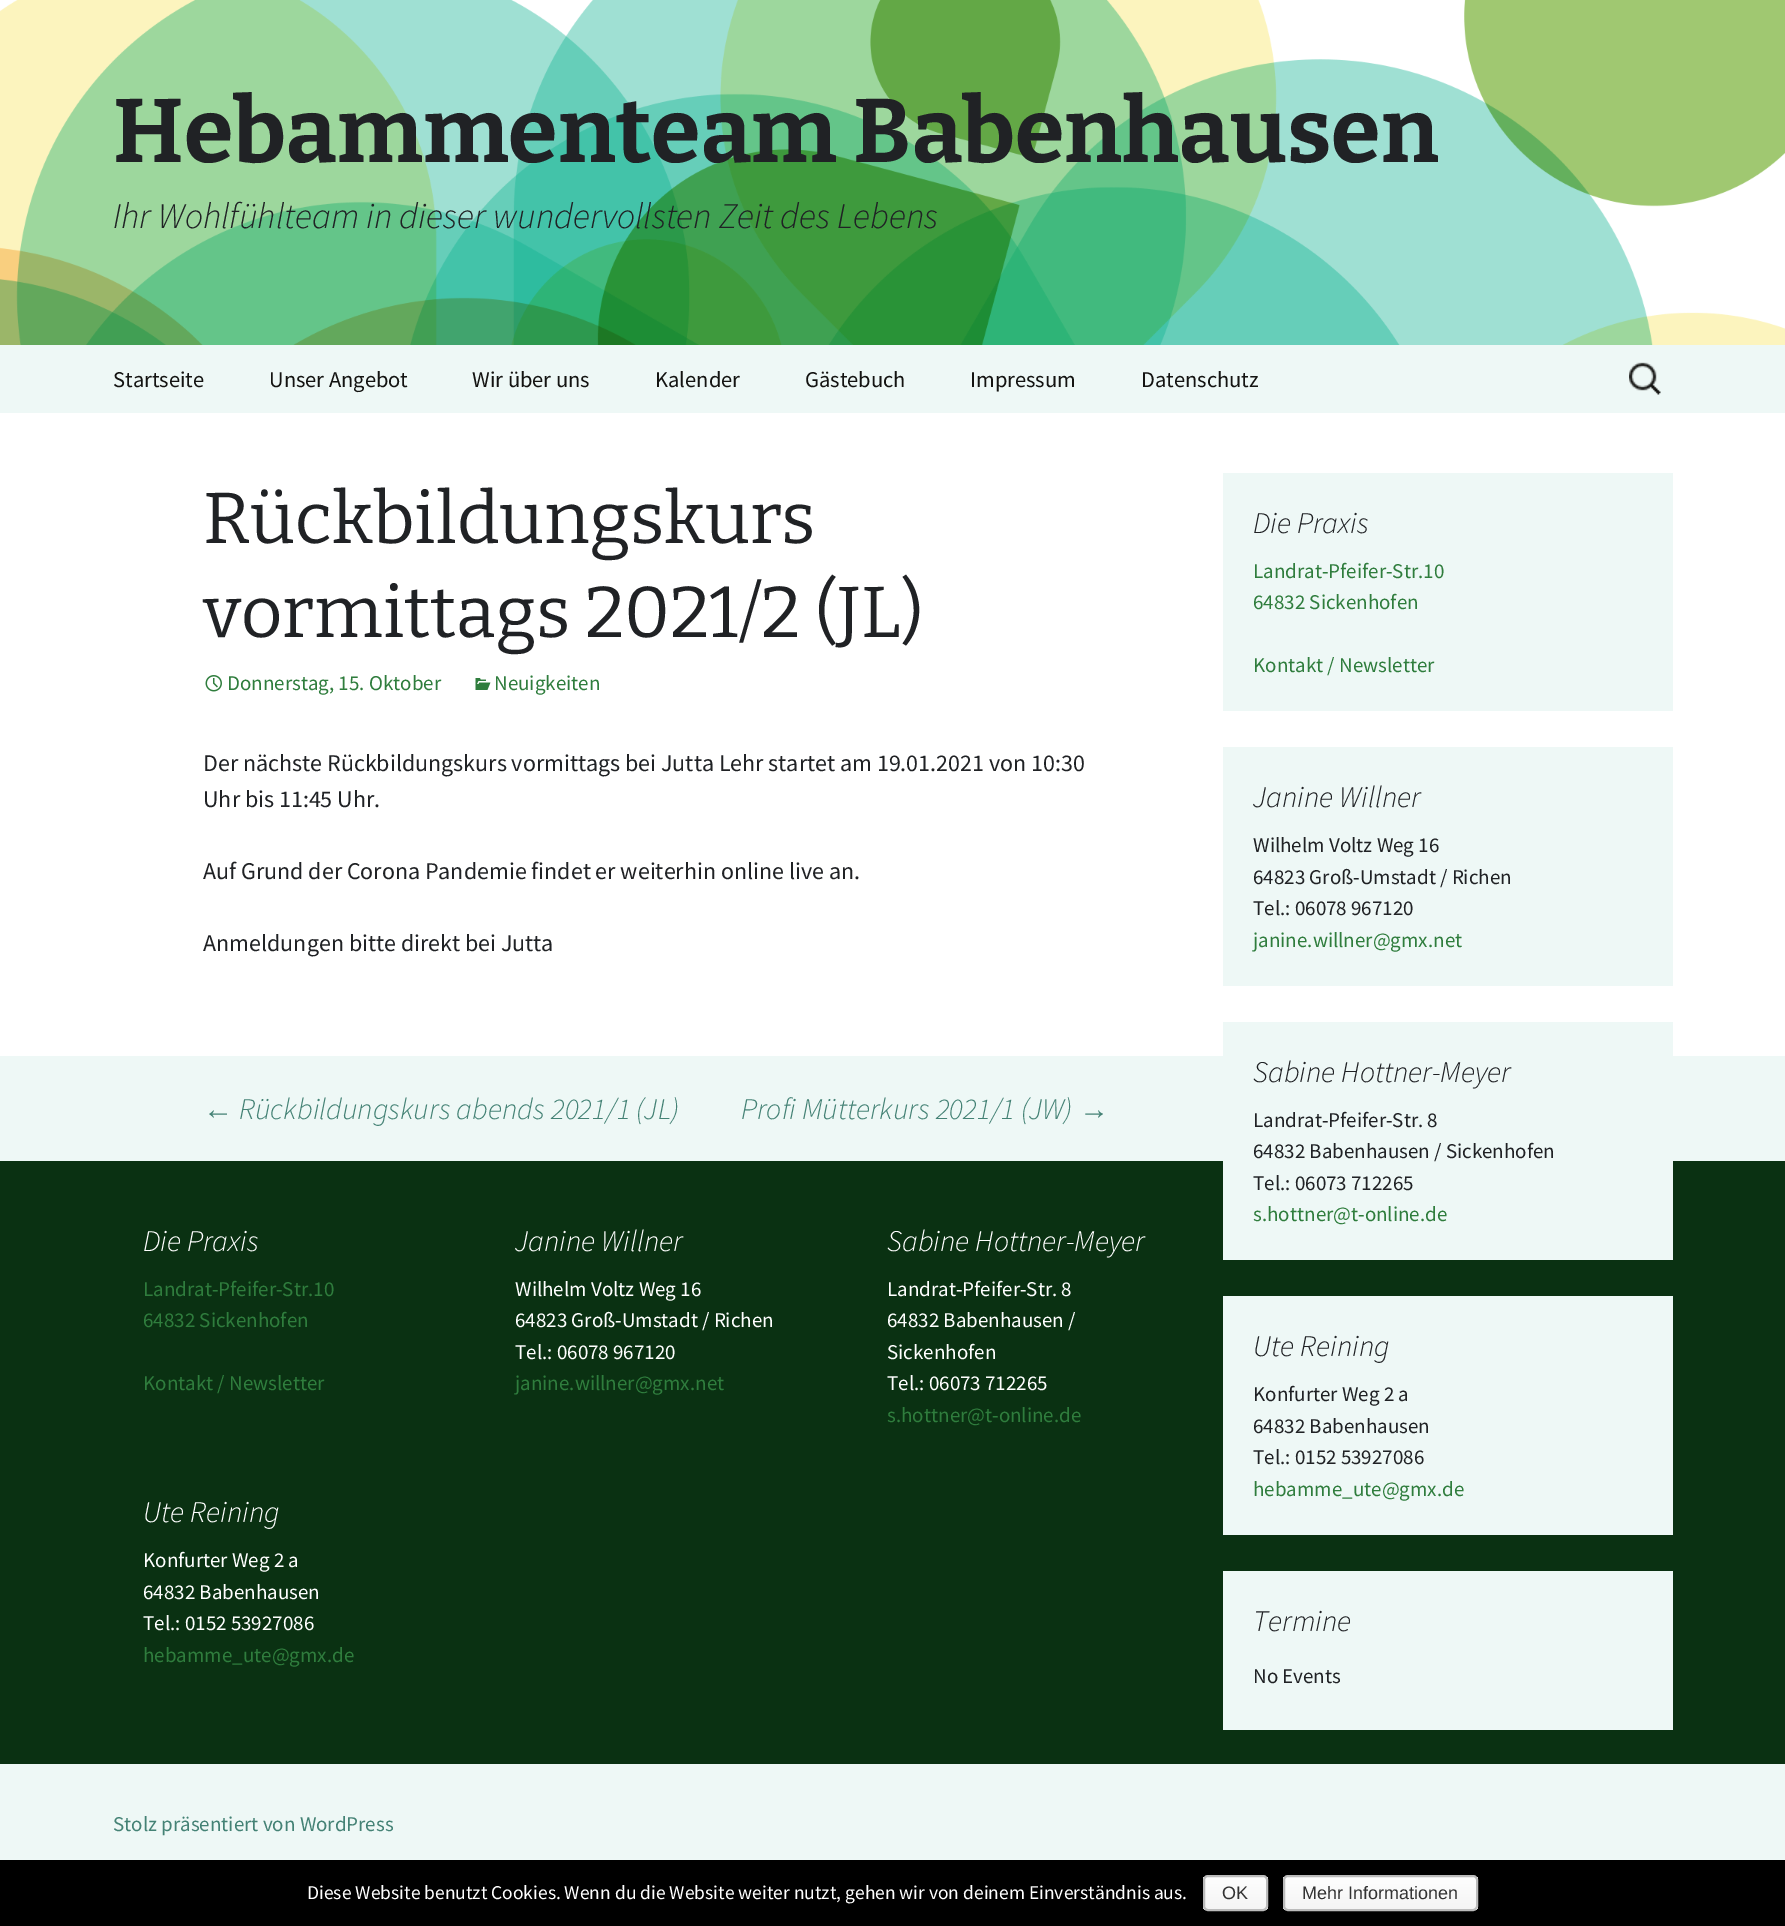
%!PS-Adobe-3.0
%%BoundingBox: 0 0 1785 1926
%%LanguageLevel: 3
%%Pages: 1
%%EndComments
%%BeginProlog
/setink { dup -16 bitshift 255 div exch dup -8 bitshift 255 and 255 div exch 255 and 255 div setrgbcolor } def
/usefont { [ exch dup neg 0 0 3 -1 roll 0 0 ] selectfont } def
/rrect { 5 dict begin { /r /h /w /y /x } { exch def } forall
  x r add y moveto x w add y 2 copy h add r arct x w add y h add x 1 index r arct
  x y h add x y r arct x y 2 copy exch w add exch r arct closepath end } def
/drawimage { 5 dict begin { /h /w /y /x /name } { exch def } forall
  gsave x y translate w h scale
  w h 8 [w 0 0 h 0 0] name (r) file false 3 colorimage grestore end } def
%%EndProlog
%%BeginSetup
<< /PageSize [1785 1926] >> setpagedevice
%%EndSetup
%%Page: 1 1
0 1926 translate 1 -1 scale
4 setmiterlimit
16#FFFFFF setink
0 0 1785 1926 rectfill
(img1.raw) 0 0 1785 345 drawimage
/Bitter-Bold 90 usefont
16#202225 setink
113 162 moveto (Hebammenteam Babenhausen) show
/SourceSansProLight-LightItalic 36 usefont
113 228 moveto (Ihr Wohlfühlteam in dieser wundervollsten Zeit des Lebens) show
16#EEF8F6 setink
0 345 1785 68 rectfill
/SourceSansPro-Regular 22.5 usefont
16#141412 setink
[
    [(Startseite) 113 387]
    [(Unser Angebot) 269 387]
    [(Wir über uns) 472 387]
    [(Kalender) 655 387]
    [(Gästebuch) 805 387]
    [(Impressum) 970 387]
    [(Datenschutz) 1141 387]
] { aload pop moveto show } forall
(img2.raw) 1629 362 32 33 drawimage
/Bitter-Regular 72 usefont
16#202225 setink
203 543 moveto (Rückbildungskurs) show
203 637 moveto (vormittags 2021/2 \(JL\)) show
(img3.raw) 205 675 17 17 drawimage
/SourceSansPro-Regular 21 usefont
16#2F7D3D setink
227 690 moveto (Donnerstag, 15. Oktober) show
(img4.raw) 475 678 16 12 drawimage
494 690 moveto (Neuigkeiten) show
/SourceSansPro-Regular 24 usefont
16#202225 setink
[
    [(Der nächste Rückbildungskurs vormittags bei Jutta Lehr startet am 19.01.2021 von 10:30) 203 771]
    [(Uhr bis 11:45 Uhr.) 203 807]
    [(Auf Grund der Corona Pandemie findet er weiterhin online live an.) 203 879]
    [(Anmeldungen bitte direkt bei Jutta) 203 951]
] { aload pop moveto show } forall
16#EEF8F6 setink
0 1056 1785 105 rectfill
/LiberationSans-Italic 30 usefont
16#448275 setink
203 1119 moveto (←) show
/SourceSansProLight-LightItalic 30 usefont
239 1119 moveto (Rückbildungskurs abends 2021/1 \(JL\)) show
741 1119 moveto (Profi Mütterkurs 2021/1 \(JW\)) show
/LiberationSans-Italic 30 usefont
1079 1119 moveto (→) show
16#EEF8F6 setink
1223 473 450 238 rectfill
/SourceSansProLight-LightItalic 30 usefont
16#202225 setink
1253 533 moveto (Die Praxis) show
/SourceSansPro-Regular 21 usefont
16#2F7D3D setink
[
    [(Landrat-Pfeifer-Str.10) 1253 578]
    [(64832 Sickenhofen) 1253 609]
    [(Kontakt / Newsletter) 1253 672]
] { aload pop moveto show } forall
16#EEF8F6 setink
1223 747 450 239 rectfill
/SourceSansProLight-LightItalic 30 usefont
16#202225 setink
1253 807 moveto (Janine Willner) show
/SourceSansPro-Regular 21 usefont
[
    [(Wilhelm Voltz Weg 16) 1253 852]
    [(64823 Groß-Umstadt / Richen) 1253 884]
    [(Tel.: 06078 967120) 1253 915]
] { aload pop moveto show } forall
16#2F7D3D setink
1253 947 moveto (janine.willner@gmx.net) show
16#0A3112 setink
0 1161 1785 603 rectfill
16#EEF8F6 setink
1223 1022 450 238 rectfill
/SourceSansProLight-LightItalic 30 usefont
16#202225 setink
1253 1082 moveto (Sabine Hottner-Meyer) show
/SourceSansPro-Regular 21 usefont
[
    [(Landrat-Pfeifer-Str. 8) 1253 1127]
    [(64832 Babenhausen / Sickenhofen) 1253 1158]
    [(Tel.: 06073 712265) 1253 1190]
] { aload pop moveto show } forall
16#2F7D3D setink
1253 1221 moveto (s.hottner@t-online.de) show
16#EEF8F6 setink
1223 1296 450 239 rectfill
/SourceSansProLight-LightItalic 30 usefont
16#202225 setink
1253 1356 moveto (Ute Reining) show
/SourceSansPro-Regular 21 usefont
[
    [(Konfurter Weg 2 a) 1253 1401]
    [(64832 Babenhausen) 1253 1433]
    [(Tel.: 0152 53927086) 1253 1464]
] { aload pop moveto show } forall
16#2F7D3D setink
1253 1496 moveto (hebamme_ute@gmx.de) show
16#EEF8F6 setink
1223 1571 450 159 rectfill
/SourceSansProLight-LightItalic 30 usefont
16#202225 setink
1253 1631 moveto (Termine) show
/SourceSansPro-Regular 21 usefont
1253 1683 moveto (No Events) show
16#EEF8F6 setink
0 1764 1785 96 rectfill
/SourceSansProLight-LightItalic 30 usefont
16#FFFFFF setink
143 1251 moveto (Die Praxis) show
/SourceSansPro-Regular 21 usefont
16#2F7D3D setink
[
    [(Landrat-Pfeifer-Str.10) 143 1296]
    [(64832 Sickenhofen) 143 1327]
    [(Kontakt / Newsletter) 143 1390]
] { aload pop moveto show } forall
/SourceSansProLight-LightItalic 30 usefont
16#FFFFFF setink
515 1251 moveto (Janine Willner) show
/SourceSansPro-Regular 21 usefont
[
    [(Wilhelm Voltz Weg 16) 515 1296]
    [(64823 Groß-Umstadt / Richen) 515 1327]
    [(Tel.: 06078 967120) 515 1359]
] { aload pop moveto show } forall
16#2F7D3D setink
515 1390 moveto (janine.willner@gmx.net) show
/SourceSansProLight-LightItalic 30 usefont
16#FFFFFF setink
887 1251 moveto (Sabine Hottner-Meyer) show
/SourceSansPro-Regular 21 usefont
[
    [(Landrat-Pfeifer-Str. 8) 887 1296]
    [(64832 Babenhausen /) 887 1327]
    [(Sickenhofen) 887 1359]
    [(Tel.: 06073 712265) 887 1390]
] { aload pop moveto show } forall
16#2F7D3D setink
887 1422 moveto (s.hottner@t-online.de) show
/SourceSansProLight-LightItalic 30 usefont
16#FFFFFF setink
143 1522 moveto (Ute Reining) show
/SourceSansPro-Regular 21 usefont
[
    [(Konfurter Weg 2 a) 143 1567]
    [(64832 Babenhausen) 143 1599]
    [(Tel.: 0152 53927086) 143 1630]
] { aload pop moveto show } forall
16#2F7D3D setink
143 1662 moveto (hebamme_ute@gmx.de) show
16#448275 setink
113 1831 moveto (Stolz präsentiert von WordPress) show
16#000000 setink
0 1860 1785 66 rectfill
/SourceSansPro-Regular 19.5 usefont
16#FFFFFF setink
307 1899 moveto (Diese Website benutzt Cookies. Wenn du die Website weiter nutzt, gehen wir von deinem Einverständnis aus.) show
gsave
1203 1875 65 36 5 rrect clip newpath
gsave 1203 1877 moveto 1268 1877 lineto 1268 1910 lineto 1203 1910 lineto closepath clip newpath
<< /ShadingType 2 /ColorSpace /DeviceRGB /Coords [1235 1877 1235 1910] /Extend [true true] /Function << /FunctionType 2 /Domain [0 1] /C0 [0.996 0.996 0.996] /C1 [0.957 0.957 0.957] /N 1 >> >> shfill grestore
grestore
16#BBBBBB setink
2 setlinewidth
1204 1876 63 34 4 rrect stroke
/LiberationSans-Regular 18 usefont
16#333333 setink
1222 1899 moveto (OK) show
gsave
1283 1875 195 36 5 rrect clip newpath
gsave 1283 1877 moveto 1478 1877 lineto 1478 1910 lineto 1283 1910 lineto closepath clip newpath
<< /ShadingType 2 /ColorSpace /DeviceRGB /Coords [1380 1877 1380 1910] /Extend [true true] /Function << /FunctionType 2 /Domain [0 1] /C0 [0.996 0.996 0.996] /C1 [0.957 0.957 0.957] /N 1 >> >> shfill grestore
grestore
16#BBBBBB setink
1284 1876 193 34 4 rrect stroke
16#333333 setink
1302 1899 moveto (Mehr Informationen) show
showpage
%%EOF
